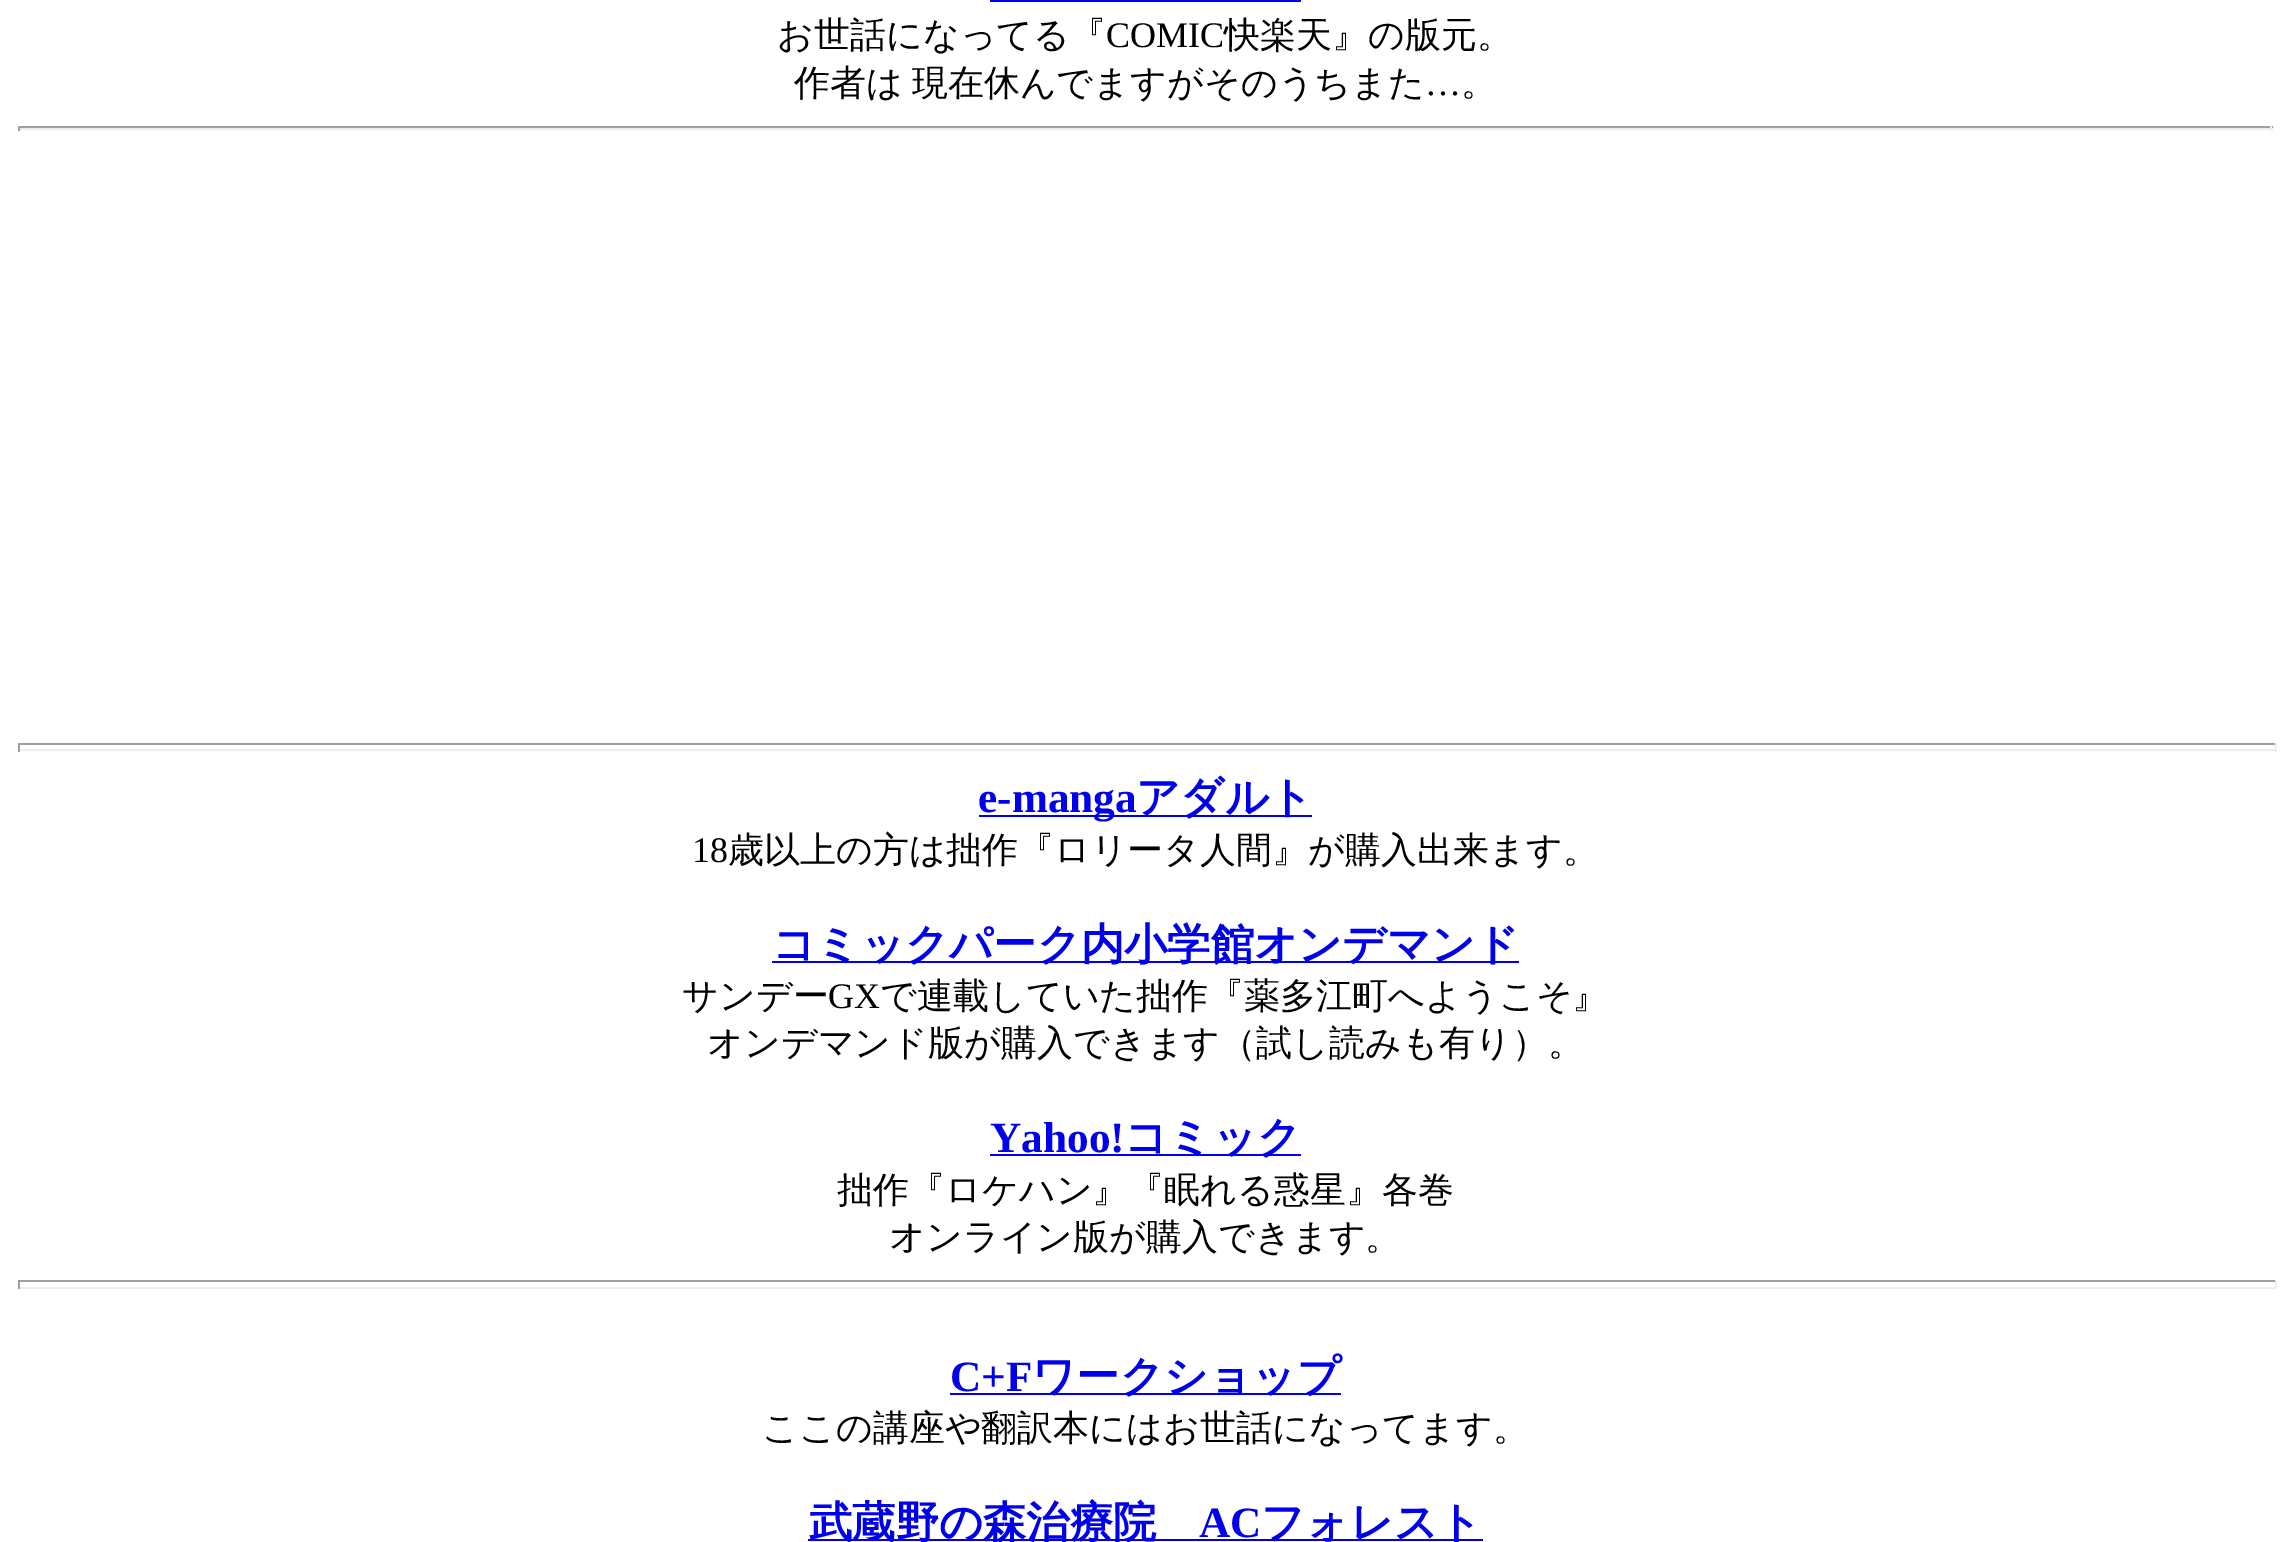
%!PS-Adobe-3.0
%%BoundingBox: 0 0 2289 1542
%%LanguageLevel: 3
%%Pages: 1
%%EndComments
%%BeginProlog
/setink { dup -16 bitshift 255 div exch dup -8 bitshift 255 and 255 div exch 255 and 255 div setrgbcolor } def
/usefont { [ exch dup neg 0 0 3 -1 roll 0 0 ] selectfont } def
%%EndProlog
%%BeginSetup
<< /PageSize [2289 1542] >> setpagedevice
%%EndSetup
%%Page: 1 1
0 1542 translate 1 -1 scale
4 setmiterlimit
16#FFFFFF setink
0 0 2289 1542 rectfill
16#0000EE setink
990 0 311 2 rectfill
/WenQuanYiZenHei-Medium 36 usefont
16#000000 setink
777 47 moveto (お世話になってる『) show
/LiberationSerif-Regular 36 usefont
1106 47 moveto (COMIC) show
/WenQuanYiZenHei-Medium 36 usefont
1224 47 moveto (快楽天』の版元。) show
794 95 moveto -2 0 32 (作者は 現在休んでますがそのうちまた) widthshow
/LiberationSerif-Regular 36 usefont
1425 95 moveto (…) show
/WenQuanYiZenHei-Medium 36 usefont
1461 95 moveto (。) show
[
    [18 126 2255 2 16#9F9F9F]
    [2270 126 2 5 16#EEEEEE]
    [18 128 2255 2 16#EEEEEE]
    [18 126 2 5 16#9F9F9F]
    [18 743 2259 2 16#9F9F9F]
    [2275 743 2 9 16#EEEEEE]
    [18 749 2259 2 16#EEEEEE]
    [18 743 2 9 16#9F9F9F]
    [979 815 333 2 16#0000EE]
] { aload pop setink rectfill } forall
/LiberationSerif-Bold 43.25 usefont
978 812 moveto (e-manga) show
/WenQuanYiZenHei-Bold 43.25 usefont
1136 812 moveto (アダルト) show
/LiberationSerif-Regular 36 usefont
16#000000 setink
692 862 moveto (18) show
/WenQuanYiZenHei-Medium 36 usefont
728 862 moveto (歳以上の方は拙作『ロリータ人間』が購入出来ます。) show
16#0000EE setink
772 961 747 2 rectfill
/WenQuanYiZenHei-Bold 43.25 usefont
772 959 moveto (コミックパーク内小学館オンデマンド) show
/WenQuanYiZenHei-Medium 36 usefont
16#000000 setink
682 1008 moveto (サンデー) show
/LiberationSerif-Regular 36 usefont
828 1008 moveto (GX) show
/WenQuanYiZenHei-Medium 36 usefont
880 1008 moveto (で連載していた拙作『薬多江町へようこそ』) show
707 1055 moveto (オンデマンド版が購入できます（試し読みも有り）。) show
/LiberationSerif-Bold 43.25 usefont
16#0000EE setink
990 1152 moveto (Yahoo!) show
990 1154 311 2 rectfill
/WenQuanYiZenHei-Bold 43.25 usefont
1124 1152 moveto (コミック) show
/WenQuanYiZenHei-Medium 36 usefont
16#000000 setink
837 1202 moveto (拙作『ロケハン』『眠れる惑星』各巻) show
889 1249 moveto (オンライン版が購入できます。) show
[
    [18 1280 2259 2 16#9F9F9F]
    [2275 1280 2 9 16#EEEEEE]
    [18 1287 2259 2 16#EEEEEE]
    [18 1280 2 9 16#9F9F9F]
] { aload pop setink rectfill } forall
/LiberationSerif-Bold 43.25 usefont
16#0000EE setink
950 1391 moveto (C+F) show
950 1393 391 2 rectfill
/WenQuanYiZenHei-Bold 43.25 usefont
1032 1391 moveto (ワークショップ) show
/WenQuanYiZenHei-Medium 36 usefont
16#000000 setink
762 1440 moveto (ここの講座や翻訳本にはお世話になってます。) show
16#0000EE setink
808 1539 675 2 rectfill
/WenQuanYiZenHei-Bold 43.25 usefont
809 1537 moveto (武蔵野の森治療院) show
/LiberationSerif-Bold 43.25 usefont
1199 1537 moveto (AC) show
/WenQuanYiZenHei-Bold 43.25 usefont
1261 1537 moveto (フォレスト) show
showpage
%%EOF
